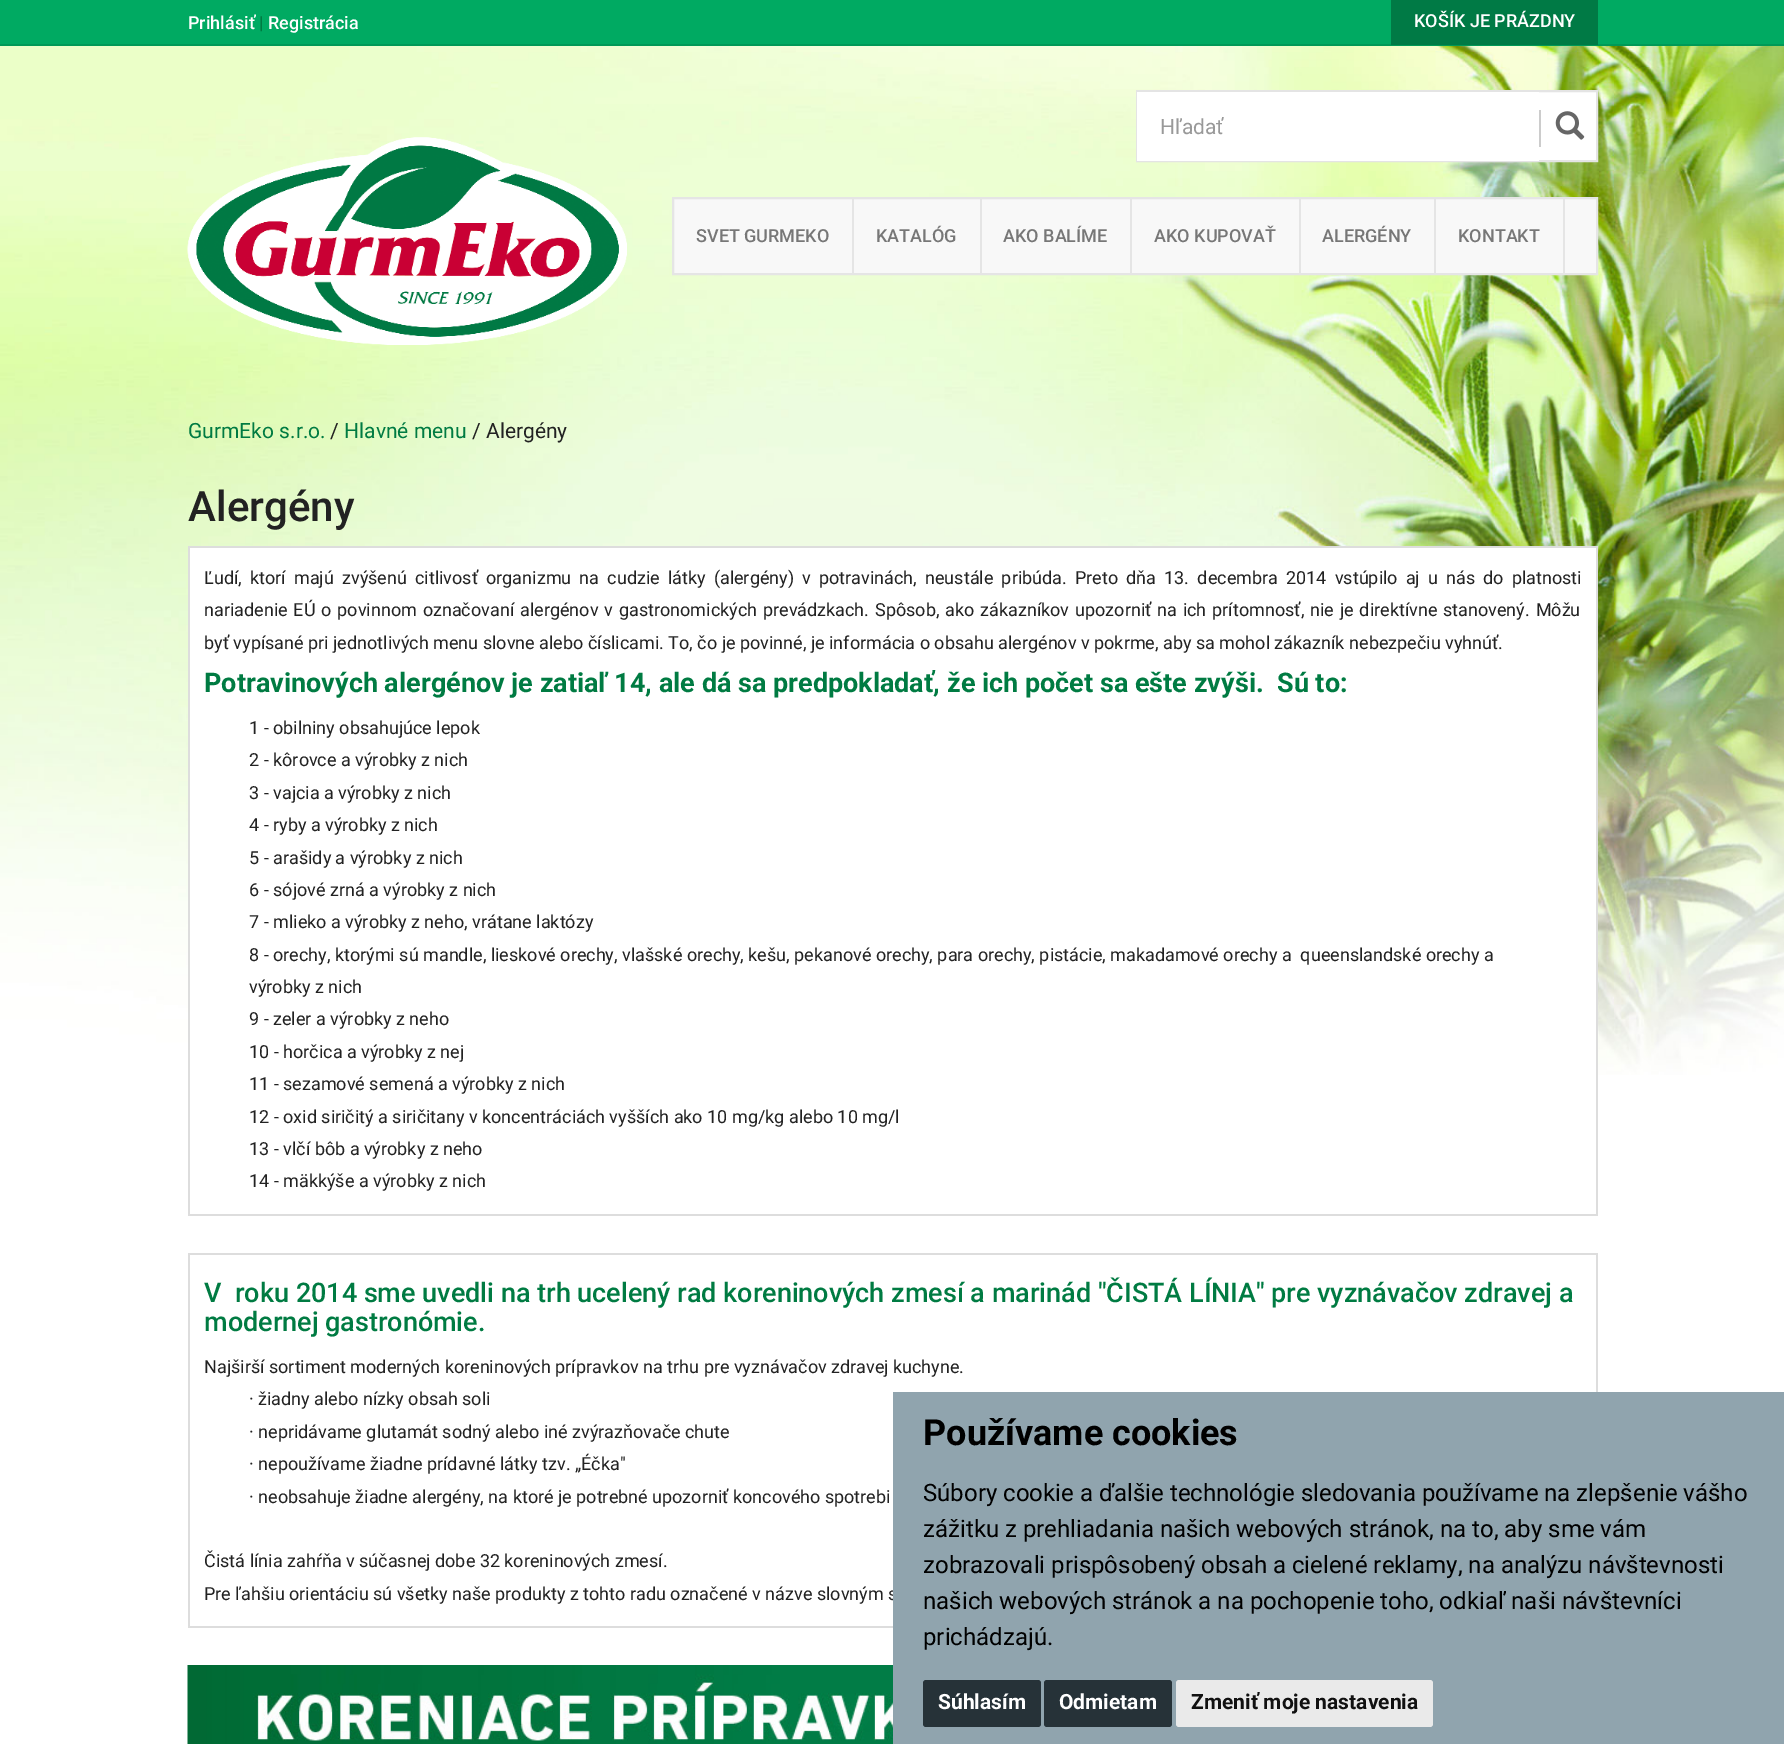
%!PS-Adobe-3.0
%%BoundingBox: 0 0 1784 1744
%%LanguageLevel: 3
%%Pages: 1
%%EndComments
%%BeginProlog
/setink { dup -16 bitshift 255 div exch dup -8 bitshift 255 and 255 div exch 255 and 255 div setrgbcolor } def
/usefont { [ exch dup neg 0 0 3 -1 roll 0 0 ] selectfont } def
/rrect { 5 dict begin { /r /h /w /y /x } { exch def } forall
  x r add y moveto x w add y 2 copy h add r arct x w add y h add x 1 index r arct
  x y h add x y r arct x y 2 copy exch w add exch r arct closepath end } def
/drawimage { 5 dict begin { /h /w /y /x /name } { exch def } forall
  gsave x y translate w h scale
  w h 8 [w 0 0 h 0 0] name (r) file false 3 colorimage grestore end } def
%%EndProlog
%%BeginSetup
<< /PageSize [1784 1744] >> setpagedevice
%%EndSetup
%%Page: 1 1
0 1744 translate 1 -1 scale
4 setmiterlimit
16#FFFFFF setink
0 0 1784 1744 rectfill
(img1.raw) 0 46 1784 1029 drawimage
16#00AA62 setink
0 0 1784 44 rectfill
16#009957 setink
0 44 1784 2 rectfill
/Roboto-Medium 18 usefont
16#FFFFFF setink
188 29 moveto (Prihlásiť) show
16#007B42 setink
259 29 moveto (|) show
16#FFFFFF setink
268 29 moveto (Registrácia) show
16#007A45 setink
1391 0 207 45 rectfill
16#FFFFFF setink
1414 27 moveto (KOŠÍK JE PRÁZDNY) show
(img2.raw) 187 137 440 208 drawimage
1539 92 57 68 rectfill
16#E4E4E4 setink
2 setlinewidth
1137 91 460 70 rectstroke
16#FFFFFF setink
1137 92 402 69 rectfill
/Roboto-Regular 21 usefont
16#999999 setink
1160 134 moveto (Hľadať) show
16#CCCCCC setink
1539 110 2 37 rectfill
(img3.raw) 1555 111 30 29 drawimage
16#F8F8F8 setink
673 198 moveto 1597 198 lineto 1597 274 lineto 673 274 lineto closepath gsave fill grestore
16#E5E5E5 setink
stroke
852 198 2 75 rectfill
/Roboto-Medium 18 usefont
16#777777 setink
696 242 moveto (SVET GURMEKO) show
16#E5E5E5 setink
980 198 2 75 rectfill
16#777777 setink
876 242 moveto (KATALÓG) show
16#E5E5E5 setink
1130 198 2 75 rectfill
16#777777 setink
1003 242 moveto (AKO BALÍME) show
16#E5E5E5 setink
1299 198 2 75 rectfill
16#777777 setink
1154 242 moveto (AKO KUPOVAŤ) show
16#E5E5E5 setink
1434 198 2 75 rectfill
16#777777 setink
1322 242 moveto (ALERGÉNY) show
16#E5E5E5 setink
1563 198 2 75 rectfill
16#777777 setink
1458 242 moveto (KONTAKT) show
/Roboto-Regular 21 usefont
16#007B42 setink
188 438 moveto (GurmEko s.r.o.) show
16#222222 setink
330 438 moveto (/) show
16#007B42 setink
344 438 moveto (Hlavné menu) show
16#222222 setink
472 438 moveto (/ Alergény) show
/Roboto-Medium 42 usefont
188 521 moveto (Alergény) show
[
    [190 548 1406 527 16#FFFFFF]
    [188 546 1410 2 16#DDDDDD]
    [1596 546 2 669 16#DDDDDD]
    [188 1214 1410 2 16#DDDDDD]
    [188 546 2 669 16#DDDDDD]
] { aload pop setink rectfill } forall
/Roboto-Regular 18 usefont
16#222222 setink
204 584 moveto 3.7 0 32 (Ľudí, ktorí majú zvýšenú citlivosť organizmu na cudzie látky \(alergény\) v potravinách, neustále pribúda. Preto dňa 13. decembra 2014 vstúpilo aj u nás do platnosti) widthshow
204 616 moveto 1.4 0 32 (nariadenie EÚ o povinnom označovaní alergénov v gastronomických prevádzkach. Spôsob, ako zákazníkov upozorniť na ich prítomnosť, nie je direktívne stanovený. Môžu) widthshow
204 649 moveto (byť vypísané pri jednotlivých menu slovne alebo číslicami. To, čo je povinné, je informácia o obsahu alergénov v pokrme, aby sa mohol zákazník nebezpečiu vyhnúť.) show
/Roboto-Bold 27 usefont
16#007B42 setink
204 692 moveto (Potravinových alergénov je zatiaľ 14, ale dá sa predpokladať, že ich počet sa ešte zvýši.  Sú to:) show
/Roboto-Regular 18 usefont
16#222222 setink
[
    [(1 - obilniny obsahujúce lepok) 249 734]
    [(2 - kôrovce a výrobky z nich) 249 766]
    [(3 - vajcia a výrobky z nich) 249 799]
    [(4 - ryby a výrobky z nich) 249 831]
    [(5 - arašidy a výrobky z nich) 249 864]
    [(6 - sójové zrná a výrobky z nich) 249 896]
    [(7 - mlieko a výrobky z neho, vrátane laktózy) 249 928]
    [(8 - orechy, ktorými sú mandle, lieskové orechy, vlašské orechy, kešu, pekanové orechy, para orechy, pistácie, makadamové orechy a  queenslandské orechy a) 249 961]
    [(výrobky z nich) 249 993]
    [(9 - zeler a výrobky z neho) 249 1025]
    [(10 - horčica a výrobky z nej) 249 1058]
    [(11 - sezamové semená a výrobky z nich) 249 1090]
    [(12 - oxid siričitý a siričitany v koncentráciách vyšších ako 10 mg/kg alebo 10 mg/l) 249 1123]
    [(13 - vlčí bôb a výrobky z neho) 249 1155]
    [(14 - mäkkýše a výrobky z nich) 249 1187]
] { aload pop moveto show } forall
[
    [188 1253 1410 2 16#DDDDDD]
    [1596 1253 2 139 16#DDDDDD]
    [188 1626 705 2 16#DDDDDD]
    [188 1253 2 375 16#DDDDDD]
] { aload pop setink rectfill } forall
/Roboto-Medium 27 usefont
16#007B42 setink
204 1302 moveto (V  roku 2014 sme uvedli na trh ucelený rad koreninových zmesí a marinád "ČISTÁ LÍNIA" pre vyznávačov zdravej a) show
204 1331 moveto (modernej gastronómie.) show
/Roboto-Regular 18 usefont
16#222222 setink
[
    [(Najširší sortiment moderných koreninových prípravkov na trhu pre vyznávačov zdravej kuchyne.) 204 1373]
    [(· žiadny alebo nízky obsah soli) 249 1405]
    [(· nepridávame glutamát sodný alebo iné zvýrazňovače chute) 249 1438]
    [(· nepoužívame žiadne prídavné látky tzv. „Éčka") 249 1470]
    [(· neobsahuje žiadne alergény, na ktoré je potrebné upozorniť koncového spotrebi) 249 1503]
    [(Čistá línia zahŕňa v súčasnej dobe 32 koreninových zmesí.) 204 1567]
    [(Pre ľahšiu orientáciu sú všetky naše produkty z tohto radu označené v názve slovným s) 204 1600]
] { aload pop moveto show } forall
(img4.raw) 187 1665 706 79 drawimage
16#90A4AE setink
893 1392 891 352 rectfill
/Roboto-Bold 36 usefont
16#000000 setink
923 1445 moveto (Používame cookies) show
/Roboto-Regular 24 usefont
[
    [(Súbory cookie a ďalšie technológie sledovania používame na zlepšenie vášho) 923 1501]
    [(zážitku z prehliadania našich webových stránok, na to, aby sme vám) 923 1537]
    [(zobrazovali prispôsobený obsah a cielené reklamy, na analýzu návštevnosti) 923 1573]
    [(našich webových stránok a na pochopenie toho, odkiaľ naši návštevníci) 923 1609]
    [(prichádzajú.) 923 1645]
] { aload pop moveto show } forall
16#263238 setink
923 1680 118 47 3 rrect fill
/Roboto-Bold 21 usefont
16#FFFFFF setink
938 1709 moveto (Súhlasím) show
16#263238 setink
1044 1680 128 47 3 rrect fill
16#FFFFFF setink
1059 1709 moveto (Odmietam) show
16#EAEAEA setink
1176 1680 257 47 3 rrect fill
16#111111 setink
1191 1709 moveto (Zmeniť moje nastavenia) show
showpage
%%EOF
